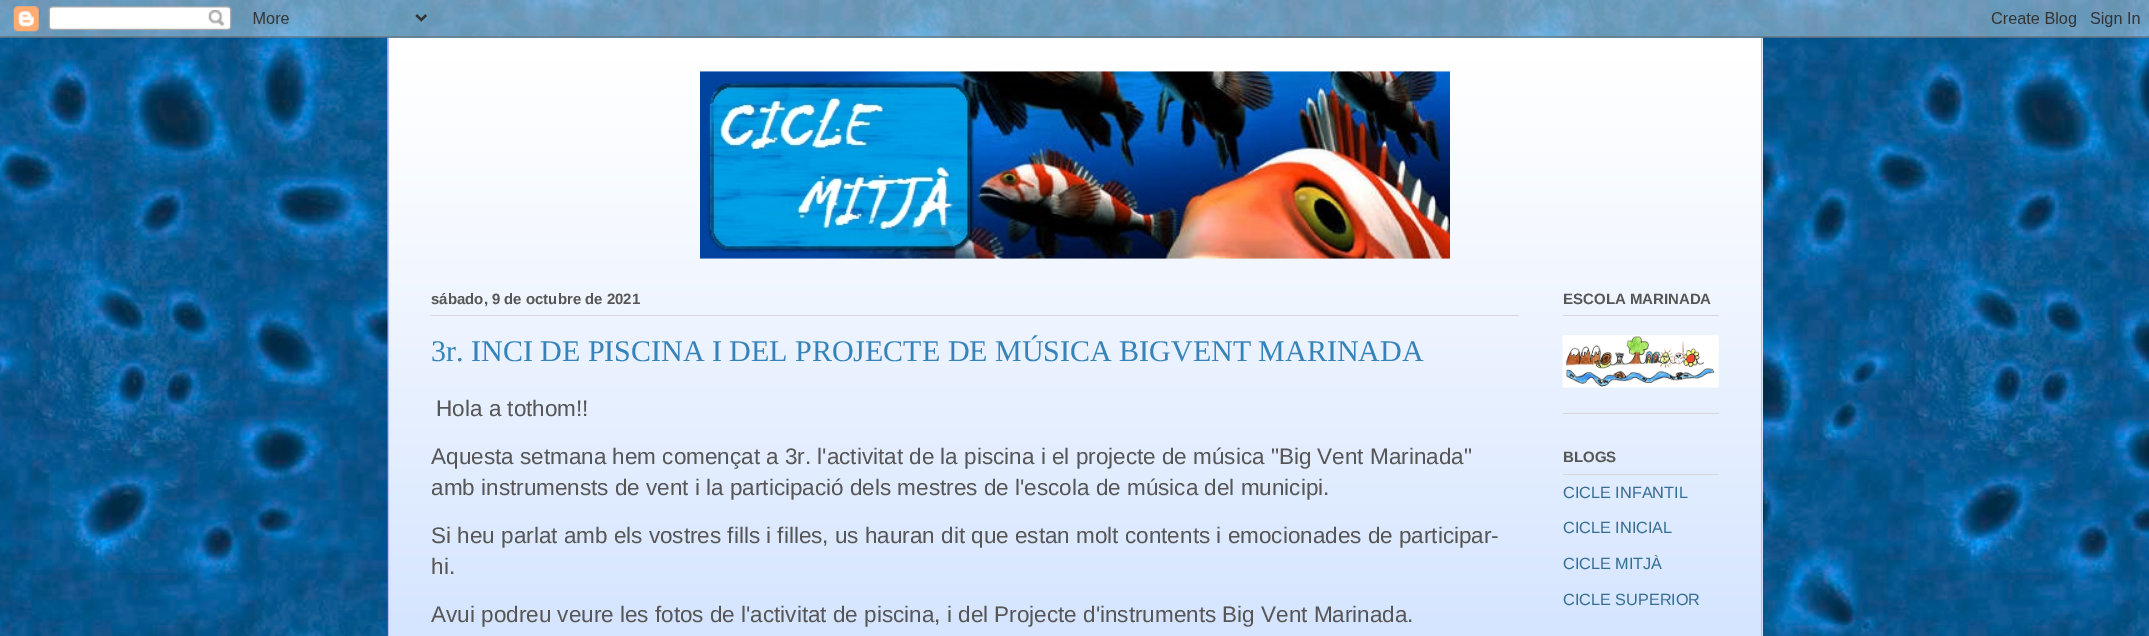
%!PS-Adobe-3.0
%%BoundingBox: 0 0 2149 636
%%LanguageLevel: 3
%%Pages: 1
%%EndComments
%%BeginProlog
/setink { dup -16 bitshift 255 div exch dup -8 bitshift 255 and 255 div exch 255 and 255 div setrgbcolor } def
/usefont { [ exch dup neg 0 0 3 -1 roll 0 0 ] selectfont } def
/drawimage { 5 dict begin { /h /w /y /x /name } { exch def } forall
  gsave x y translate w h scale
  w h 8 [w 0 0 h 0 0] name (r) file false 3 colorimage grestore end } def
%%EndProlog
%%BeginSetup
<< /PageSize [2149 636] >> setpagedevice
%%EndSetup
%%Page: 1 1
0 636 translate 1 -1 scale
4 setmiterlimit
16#FFFFFF setink
0 0 2149 636 rectfill
(img1.raw) 0 0 2149 636 drawimage
16#CEE0FF setink
389 38 1374 598 rectfill
(img3.raw) 387 37 1376 599 drawimage
(img2.raw) 0 0 2149 38 drawimage
16#B5B9FF setink
1761 38 1 598 rectfill
388 38 1 598 rectfill
(img4.raw) 700 71 750 188 drawimage
16#D8D8D8 setink
431 315 1088 1 rectfill
/LiberationSans-Bold 15 usefont
16#565656 setink
431 304 moveto (sábado, 9 de octubre de 2021) show
/LiberationSerif-Regular 30 usefont
16#3683BA setink
431 361 moveto (3r. INCI DE PISCINA I DEL PROJECTE DE MÚSICA BIGVENT MARINADA) show
/LiberationSans-Regular 22.5 usefont
16#565656 setink
[
    [(Hola a tothom!!) 436 416]
    [(Aquesta setmana hem començat a 3r. l'activitat de la piscina i el projecte de música "Big Vent Marinada") 431 464]
    [(amb instrumensts de vent i la participació dels mestres de l'escola de música del municipi.) 431 495]
    [(Si heu parlat amb els vostres fills i filles, us hauran dit que estan molt contents i emocionades de participar-) 431 543]
    [(hi.) 431 574]
    [(Avui podreu veure les fotos de l'activitat de piscina, i del Projecte d'instruments Big Vent Marinada.) 431 622]
] { aload pop moveto show } forall
16#D8D8D8 setink
1563 413 156 1 rectfill
1563 315 156 1 rectfill
/LiberationSans-Bold 15 usefont
16#565656 setink
1563 304 moveto (ESCOLA MARINADA) show
(img5.raw) 1562 335 157 53 drawimage
16#D8D8D8 setink
1563 474 156 1 rectfill
16#565656 setink
1563 462 moveto (BLOGS) show
/LiberationSans-Regular 16.25 usefont
16#366D93 setink
[
    [(CICLE INFANTIL) 1563 498]
    [(CICLE INICIAL) 1563 533]
    [(CICLE MITJÀ) 1563 569]
    [(CICLE SUPERIOR) 1563 605]
] { aload pop moveto show } forall
showpage
%%EOF
